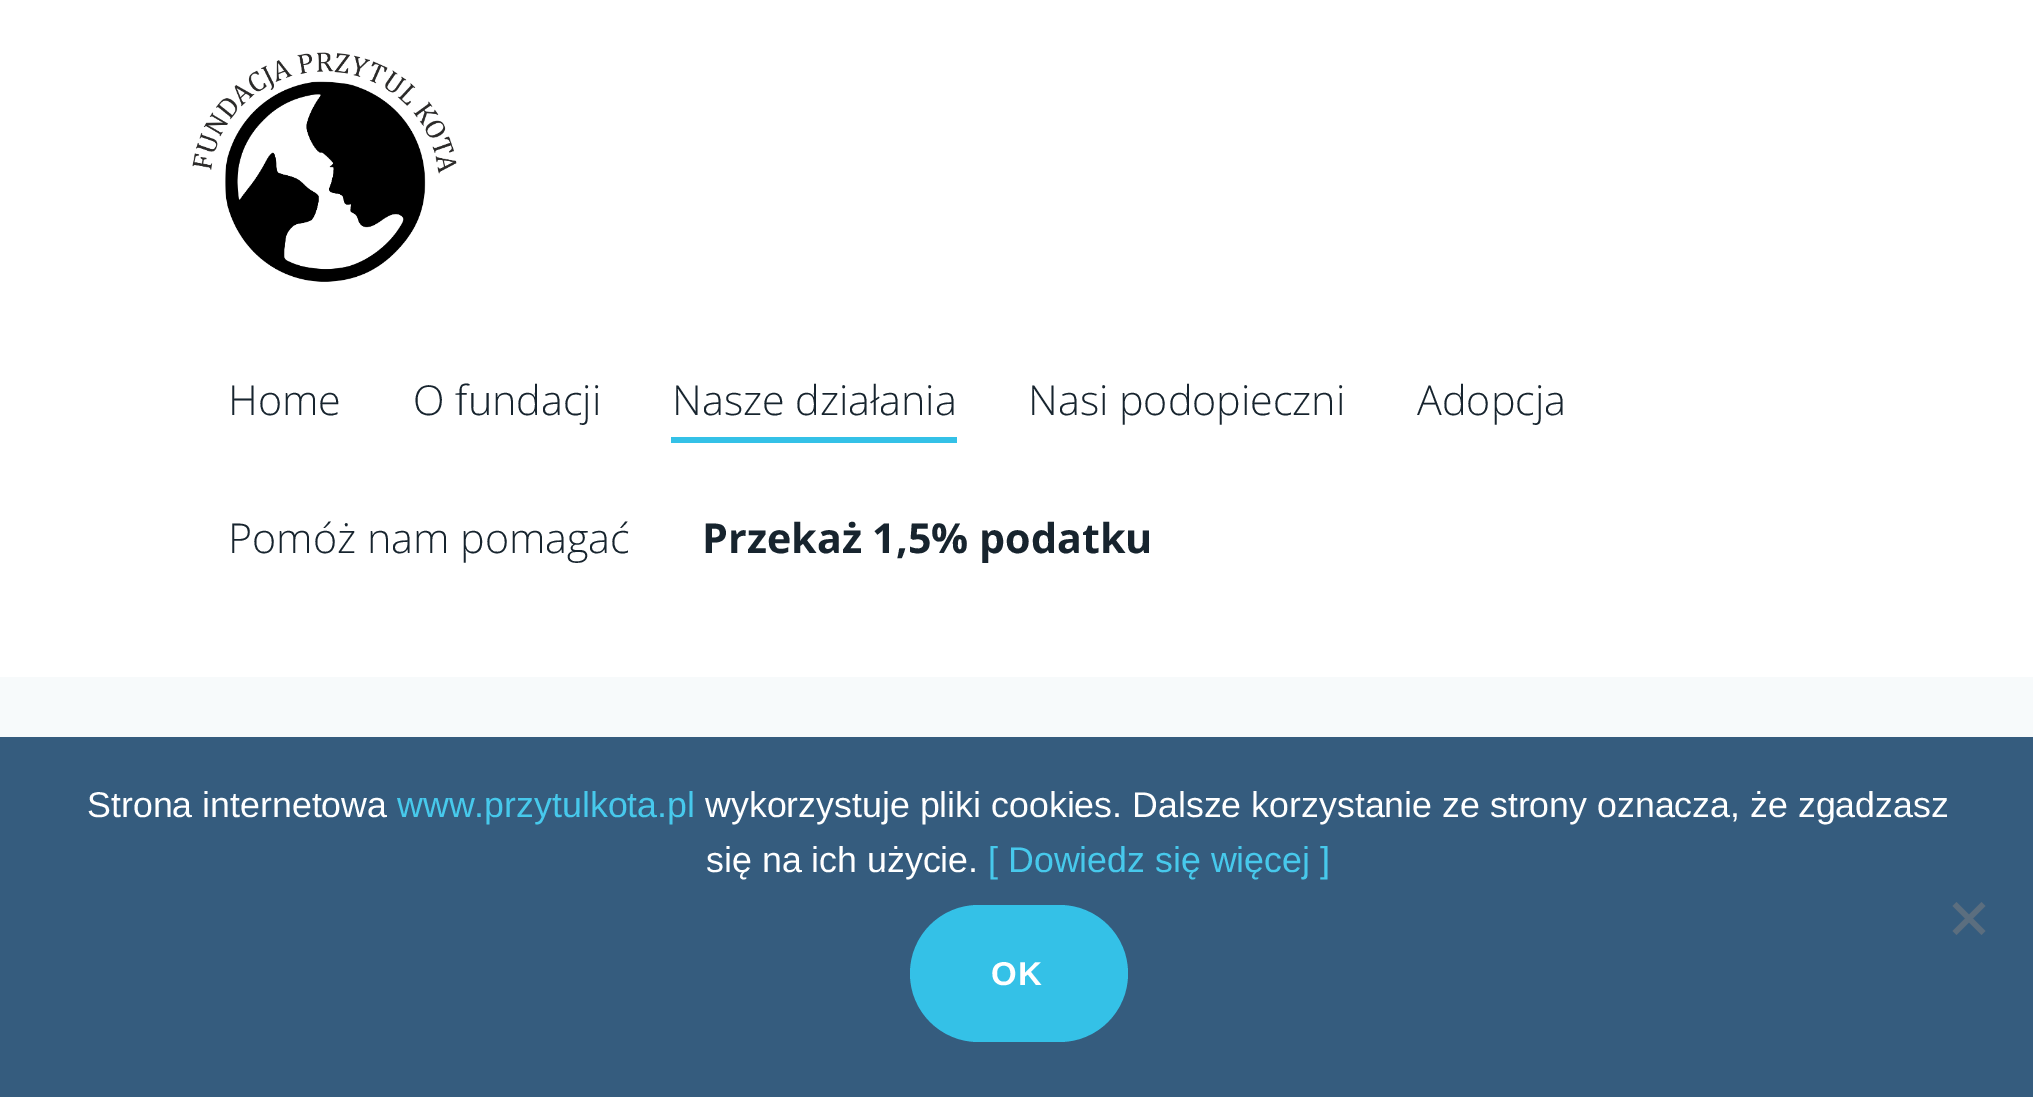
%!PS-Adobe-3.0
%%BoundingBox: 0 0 2033 1097
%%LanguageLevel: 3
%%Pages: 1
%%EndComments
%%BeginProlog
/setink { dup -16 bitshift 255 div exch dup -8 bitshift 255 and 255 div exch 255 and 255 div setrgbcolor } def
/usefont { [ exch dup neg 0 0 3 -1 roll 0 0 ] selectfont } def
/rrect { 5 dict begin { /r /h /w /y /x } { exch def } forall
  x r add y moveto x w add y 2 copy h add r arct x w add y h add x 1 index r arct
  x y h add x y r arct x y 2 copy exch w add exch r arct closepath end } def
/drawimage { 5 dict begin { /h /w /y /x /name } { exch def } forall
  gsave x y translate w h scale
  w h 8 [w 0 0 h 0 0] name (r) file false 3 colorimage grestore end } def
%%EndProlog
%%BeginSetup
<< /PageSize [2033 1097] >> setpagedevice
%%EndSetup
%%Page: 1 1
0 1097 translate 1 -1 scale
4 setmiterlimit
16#FFFFFF setink
0 0 2033 1097 rectfill
(img1.raw) 192 52 265 230 drawimage
/OpenSans-Light 41.25 usefont
16#17242E setink
[
    [(Home) 228 415]
    [(O fundacji) 413 415]
    [(Nasze działania) 672 415]
] { aload pop moveto show } forall
16#34C1E7 setink
671 437 286 6 rectfill
16#17242E setink
[
    [(Nasi podopieczni) 1028 415]
    [(Adopcja) 1417 415]
    [(Pomóż nam pomagać) 228 553]
] { aload pop moveto show } forall
/OpenSans-Bold 41.25 usefont
702 553 moveto (Przekaż 1,5% podatku) show
16#F7FAFB setink
0 677 2033 60 rectfill
16#355C7E setink
0 737 2033 360 rectfill
/LiberationSans-Regular 35.75 usefont
16#FFFFFF setink
87 817 moveto (Strona internetowa) show
16#47C9EC setink
397 817 moveto (www.przytulkota.pl) show
16#FFFFFF setink
705 817 moveto (wykorzystuje pliki cookies. Dalsze korzystanie ze strony oznacza, że zgadzasz) show
706 872 moveto (się na ich użycie.) show
16#47C9EC setink
988 872 moveto ([ Dowiedz się więcej ]) show
16#5B6E7F setink
1981.5 902 moveto 1985.5 906 lineto 1956.5 935 lineto 1952.5 931 lineto closepath fill
1952.5 906 moveto 1956.5 902 lineto 1985.5 931 lineto 1981.5 935 lineto closepath fill
16#34C1E7 setink
910 905 218 137 68.5 rrect fill
/LiberationSans-Bold 33 usefont
16#FFFFFF setink
991 985 moveto 1 0 (OK) ashow
showpage
%%EOF
